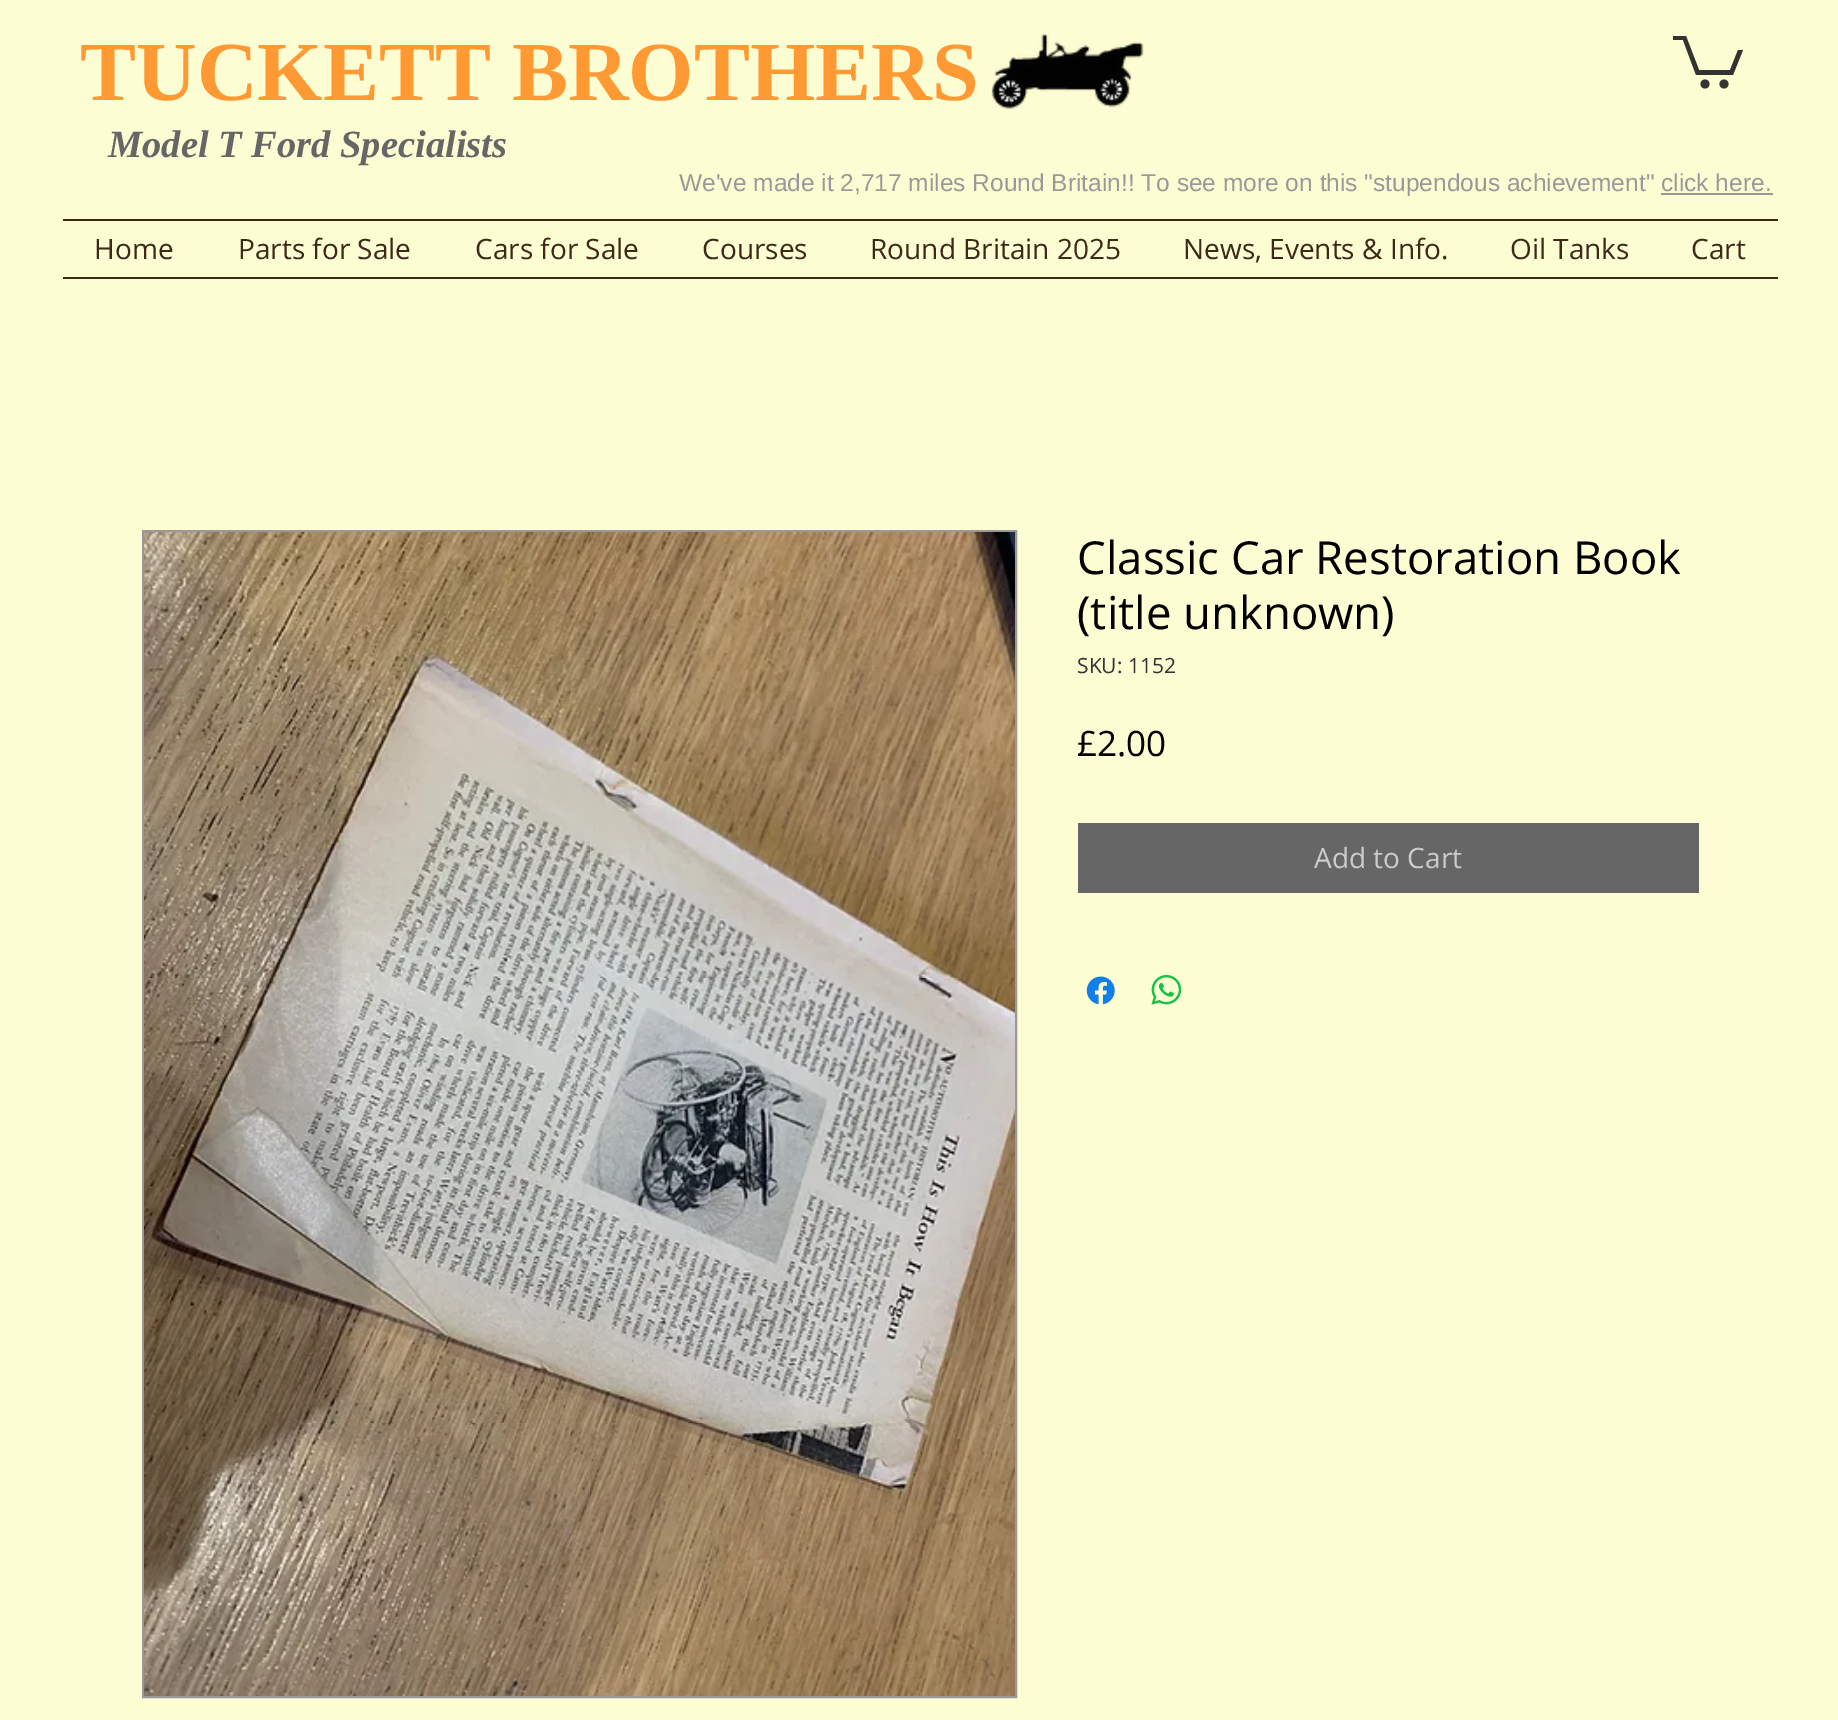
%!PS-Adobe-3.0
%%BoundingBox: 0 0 1838 1720
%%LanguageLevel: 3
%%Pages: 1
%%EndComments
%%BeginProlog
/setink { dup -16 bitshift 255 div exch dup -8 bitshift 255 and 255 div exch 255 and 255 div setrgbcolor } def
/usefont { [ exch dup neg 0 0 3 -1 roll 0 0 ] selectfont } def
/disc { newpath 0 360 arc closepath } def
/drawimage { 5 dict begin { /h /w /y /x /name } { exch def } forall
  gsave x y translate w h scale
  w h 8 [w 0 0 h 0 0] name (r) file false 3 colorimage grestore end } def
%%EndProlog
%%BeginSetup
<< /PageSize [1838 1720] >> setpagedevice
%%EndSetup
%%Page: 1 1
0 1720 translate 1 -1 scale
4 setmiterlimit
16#FDFDD3 setink
0 0 1838 1720 rectfill
/LiberationSerif-Bold 84 usefont
16#FF9933 setink
80 100 moveto (TUCKETT BROTHERS) show
(img1.raw) 991 34 153 75 drawimage
16#333333 setink
1743 50 moveto 1733 75 lineto 1696 75 lineto 1683 40 lineto 1673 40 lineto 1673 36 lineto 1686 36 lineto 1699 70 lineto 1730 70 lineto 1738 50 lineto fill
1724 84 4.5 disc fill
1705 84 4.5 disc fill
/LiberationSerif-BoldItalic 38.5 usefont
16#666666 setink
108 157 moveto (Model T Ford Specialists) show
/LiberationSans-Regular 24.5 usefont
16#999999 setink
679 191 moveto (We've made it 2,717 miles Round Britain!! To see more on this "stupendous achievement" click here.) show
[
    [1661 193 112 2 16#999999]
    [63 219 1715 2 16#3E2816]
    [63 277 1715 2 16#3E2816]
] { aload pop setink rectfill } forall
/OpenSans-Regular 28 usefont
[
    [(Home) 94 259]
    [(Parts for Sale) 238 259]
    [(Cars for Sale) 475 259]
    [(Courses) 702 259]
    [(Round Britain 2025) 870 259]
    [(News, Events & Info.) 1183 259]
    [(Oil Tanks) 1510 259]
    [(Cart) 1691 259]
] { aload pop moveto show } forall
16#999999 setink
2 setlinewidth
143 531 873 1166 rectstroke
(img2.raw) 144 532 871 1164 drawimage
/OpenSans-Regular 45.5 usefont
16#000000 setink
1077 574 moveto (Classic Car Restoration Book) show
1077 629 moveto (\(title unknown\)) show
/OpenSans-Regular 21 usefont
16#333333 setink
1077 673 moveto (SKU: 1152) show
/OpenSans-Regular 35 usefont
16#000000 setink
1077 756 moveto (£2.00) show
16#666666 setink
1078 823 621 70 rectfill
/OpenSans-Regular 28 usefont
16#CCCCCC setink
1314 868 moveto (Add to Cart) show
(img3.raw) 1086 976 29 29 drawimage
(img4.raw) 1151 974 31 31 drawimage
showpage
%%EOF
